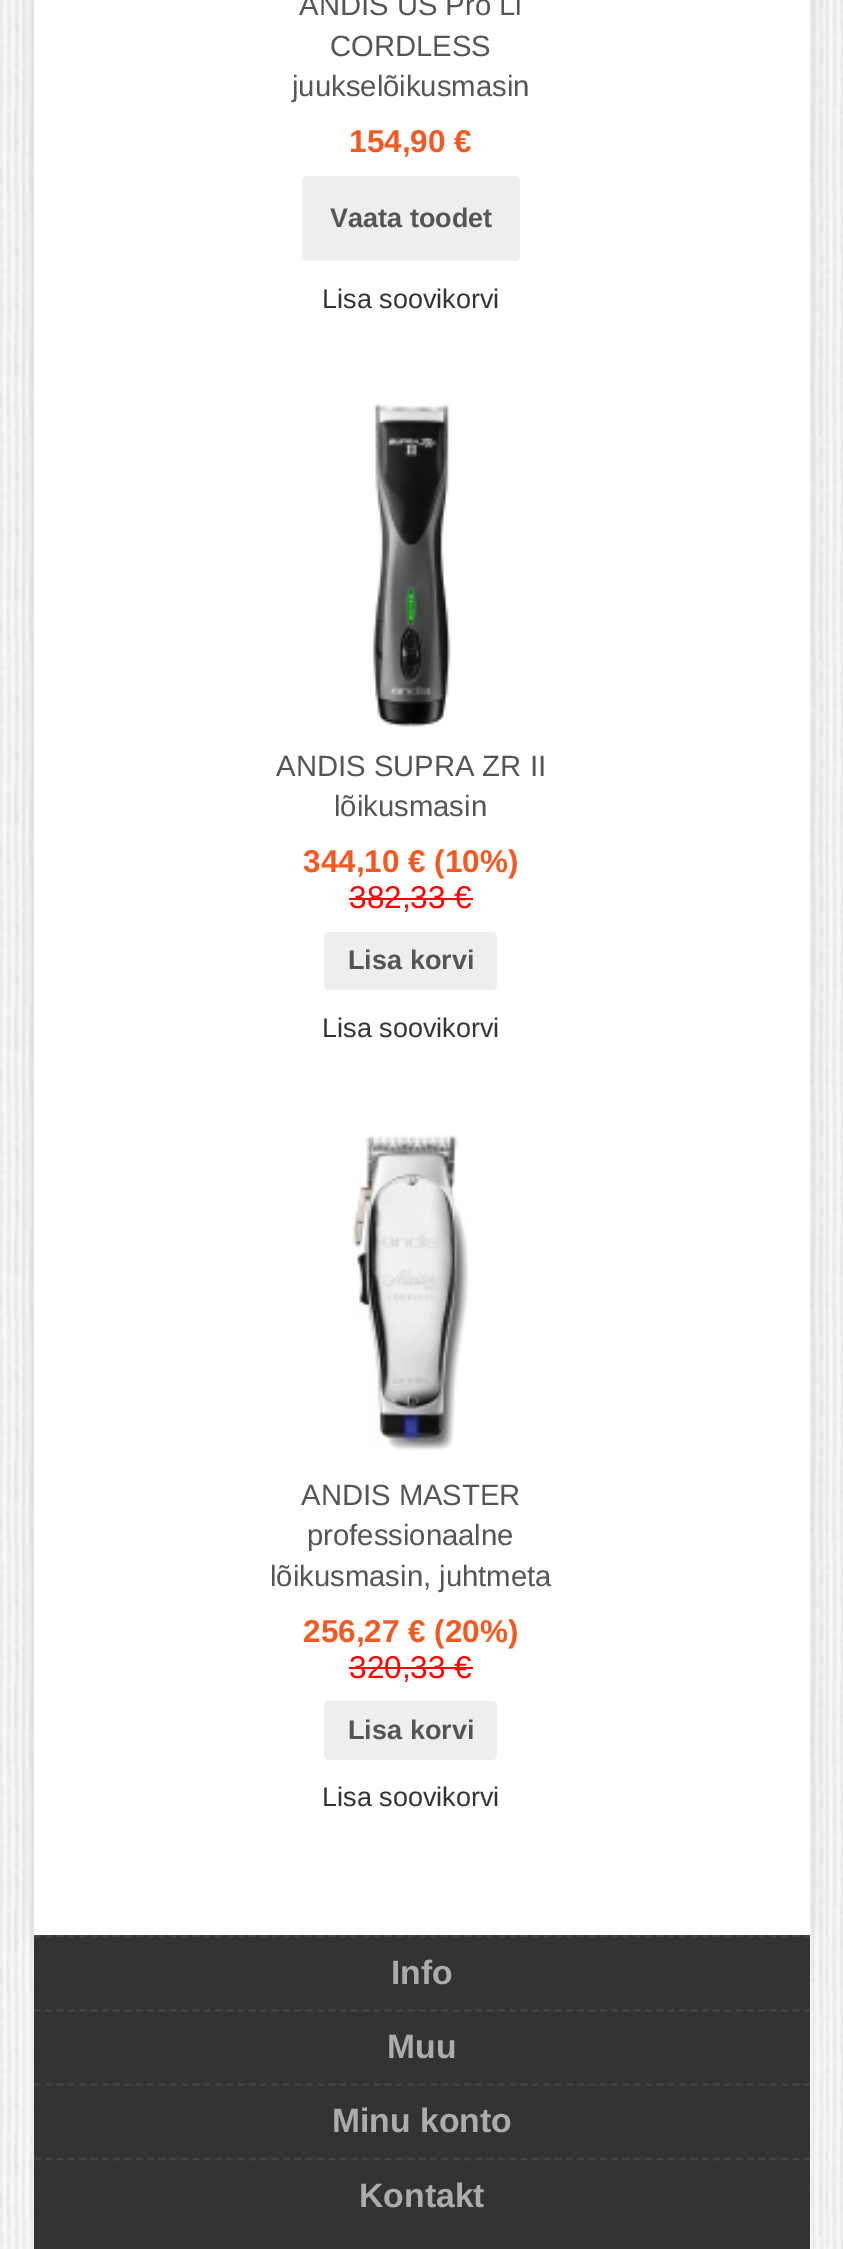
%!PS-Adobe-3.0
%%BoundingBox: 0 0 843 2249
%%LanguageLevel: 3
%%Pages: 1
%%EndComments
%%BeginProlog
/setink { dup -16 bitshift 255 div exch dup -8 bitshift 255 and 255 div exch 255 and 255 div setrgbcolor } def
/usefont { [ exch dup neg 0 0 3 -1 roll 0 0 ] selectfont } def
/setalpha { dup .setfillconstantalpha .setstrokeconstantalpha } def
/rrect { 5 dict begin { /r /h /w /y /x } { exch def } forall
  x r add y moveto x w add y 2 copy h add r arct x w add y h add x 1 index r arct
  x y h add x y r arct x y 2 copy exch w add exch r arct closepath end } def
/softshadow { 12 dict begin { /a /b /q /h /w /y /x } { exch def } forall gsave /was 0 def
  9 -2 -9 { dup b mul 4 div /e exch def 1 sub .425 mul 2.718 exch exp 1 add a .99 .min exch div /now exch def
    1 1 now sub 1 was sub div sub setalpha /was now def
    w h .min e 2 mul add 0 gt { x e sub y e sub w e 2 mul add h e 2 mul add
      q e add b .6 mul add w h .min 2 div e add .min 0 .max rrect fill } if } for grestore end } def
/drawimage { 5 dict begin { /h /w /y /x /name } { exch def } forall
  gsave x y translate w h scale
  w h 8 [w 0 0 h 0 0] name (r) file false 3 colorimage grestore end } def
%%EndProlog
%%BeginSetup
<< /PageSize [843 2249] /PageUsesTransparency true >> setpagedevice
%%EndSetup
%%Page: 1 1
0 .pushpdf14devicefilter
0 2249 translate 1 -1 scale
4 setmiterlimit
16#F8F8FA setink
0 0 843 2249 rectfill
(img1.raw) 0 0 843 2249 drawimage
16#000000 setink
34 -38 776 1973 11 9 0.08 softshadow
16#FFFFFF setink
34 0 776 1935 rectfill
/LiberationSans-Regular 29.25 usefont
16#555555 setink
[
    [(ANDIS US Pro Li) 299 15]
    [(CORDLESS) 330 56]
    [(juukselõikusmasin) 292 96]
] { aload pop moveto show } forall
/LiberationSans-Bold 31.5 usefont
16#F15A23 setink
349 152 moveto (154,90 €) show
16#EEEEEE setink
302 176 218 85 5 rrect fill
/LiberationSans-Bold 27 usefont
16#555555 setink
330 227 moveto (Vaata toodet) show
/LiberationSans-Regular 27 usefont
16#333333 setink
322 308 moveto (Lisa soovikorvi) show
(img2.raw) 373 404 78 323 drawimage
/LiberationSans-Regular 29.25 usefont
16#555555 setink
276 776 moveto (ANDIS SUPRA ZR II) show
334 816 moveto (lõikusmasin) show
/LiberationSans-Bold 31.5 usefont
16#F15A23 setink
303 872 moveto (344,10 € \(10%\)) show
/LiberationSans-Regular 31.5 usefont
16#FF0000 setink
349 908 moveto (382,33 €) show
349 898 124 2 rectfill
16#EEEEEE setink
324 932 173 58 5 rrect fill
/LiberationSans-Bold 27 usefont
16#555555 setink
348 969 moveto (Lisa korvi) show
/LiberationSans-Regular 27 usefont
16#333333 setink
322 1037 moveto (Lisa soovikorvi) show
(img3.raw) 351 1135 118 316 drawimage
/LiberationSans-Regular 29.25 usefont
16#555555 setink
[
    [(ANDIS MASTER) 301 1505]
    [(professionaalne) 307 1545]
    [(lõikusmasin, juhtmeta) 270 1586]
] { aload pop moveto show } forall
/LiberationSans-Bold 31.5 usefont
16#F15A23 setink
303 1642 moveto (256,27 € \(20%\)) show
/LiberationSans-Regular 31.5 usefont
16#FF0000 setink
349 1678 moveto (320,33 €) show
349 1667 124 2 rectfill
16#EEEEEE setink
324 1701 173 59 5 rrect fill
/LiberationSans-Bold 27 usefont
16#555555 setink
348 1739 moveto (Lisa korvi) show
/LiberationSans-Regular 27 usefont
16#333333 setink
322 1806 moveto (Lisa soovikorvi) show
34 1935 776 314 rectfill
gsave
34 1935 moveto 810 1935 lineto 810 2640 lineto 810 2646 805 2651 799 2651 curveto 45 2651 lineto 39 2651 34 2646 34 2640 curveto closepath clip newpath
16#444444 setink
2.2 setlinewidth
[6.75 4.57] 0 setdash
34 1936 moveto 810 1936 lineto stroke
grestore
/LiberationSans-Bold 33.75 usefont
16#ACACAC setink
391 1984 moveto (Info) show
16#444444 setink
2.2 setlinewidth
[6.75 4.57] 0 setdash
34 2010.5 moveto 810 2010.5 lineto stroke
16#ACACAC setink
387 2058 moveto (Muu) show
16#444444 setink
34 2084.5 moveto 810 2084.5 lineto stroke
16#ACACAC setink
332 2132 moveto (Minu konto) show
16#444444 setink
34 2159 moveto 810 2159 lineto stroke
16#ACACAC setink
359 2207 moveto (Kontakt) show
.poppdf14devicefilter showpage
%%EOF
